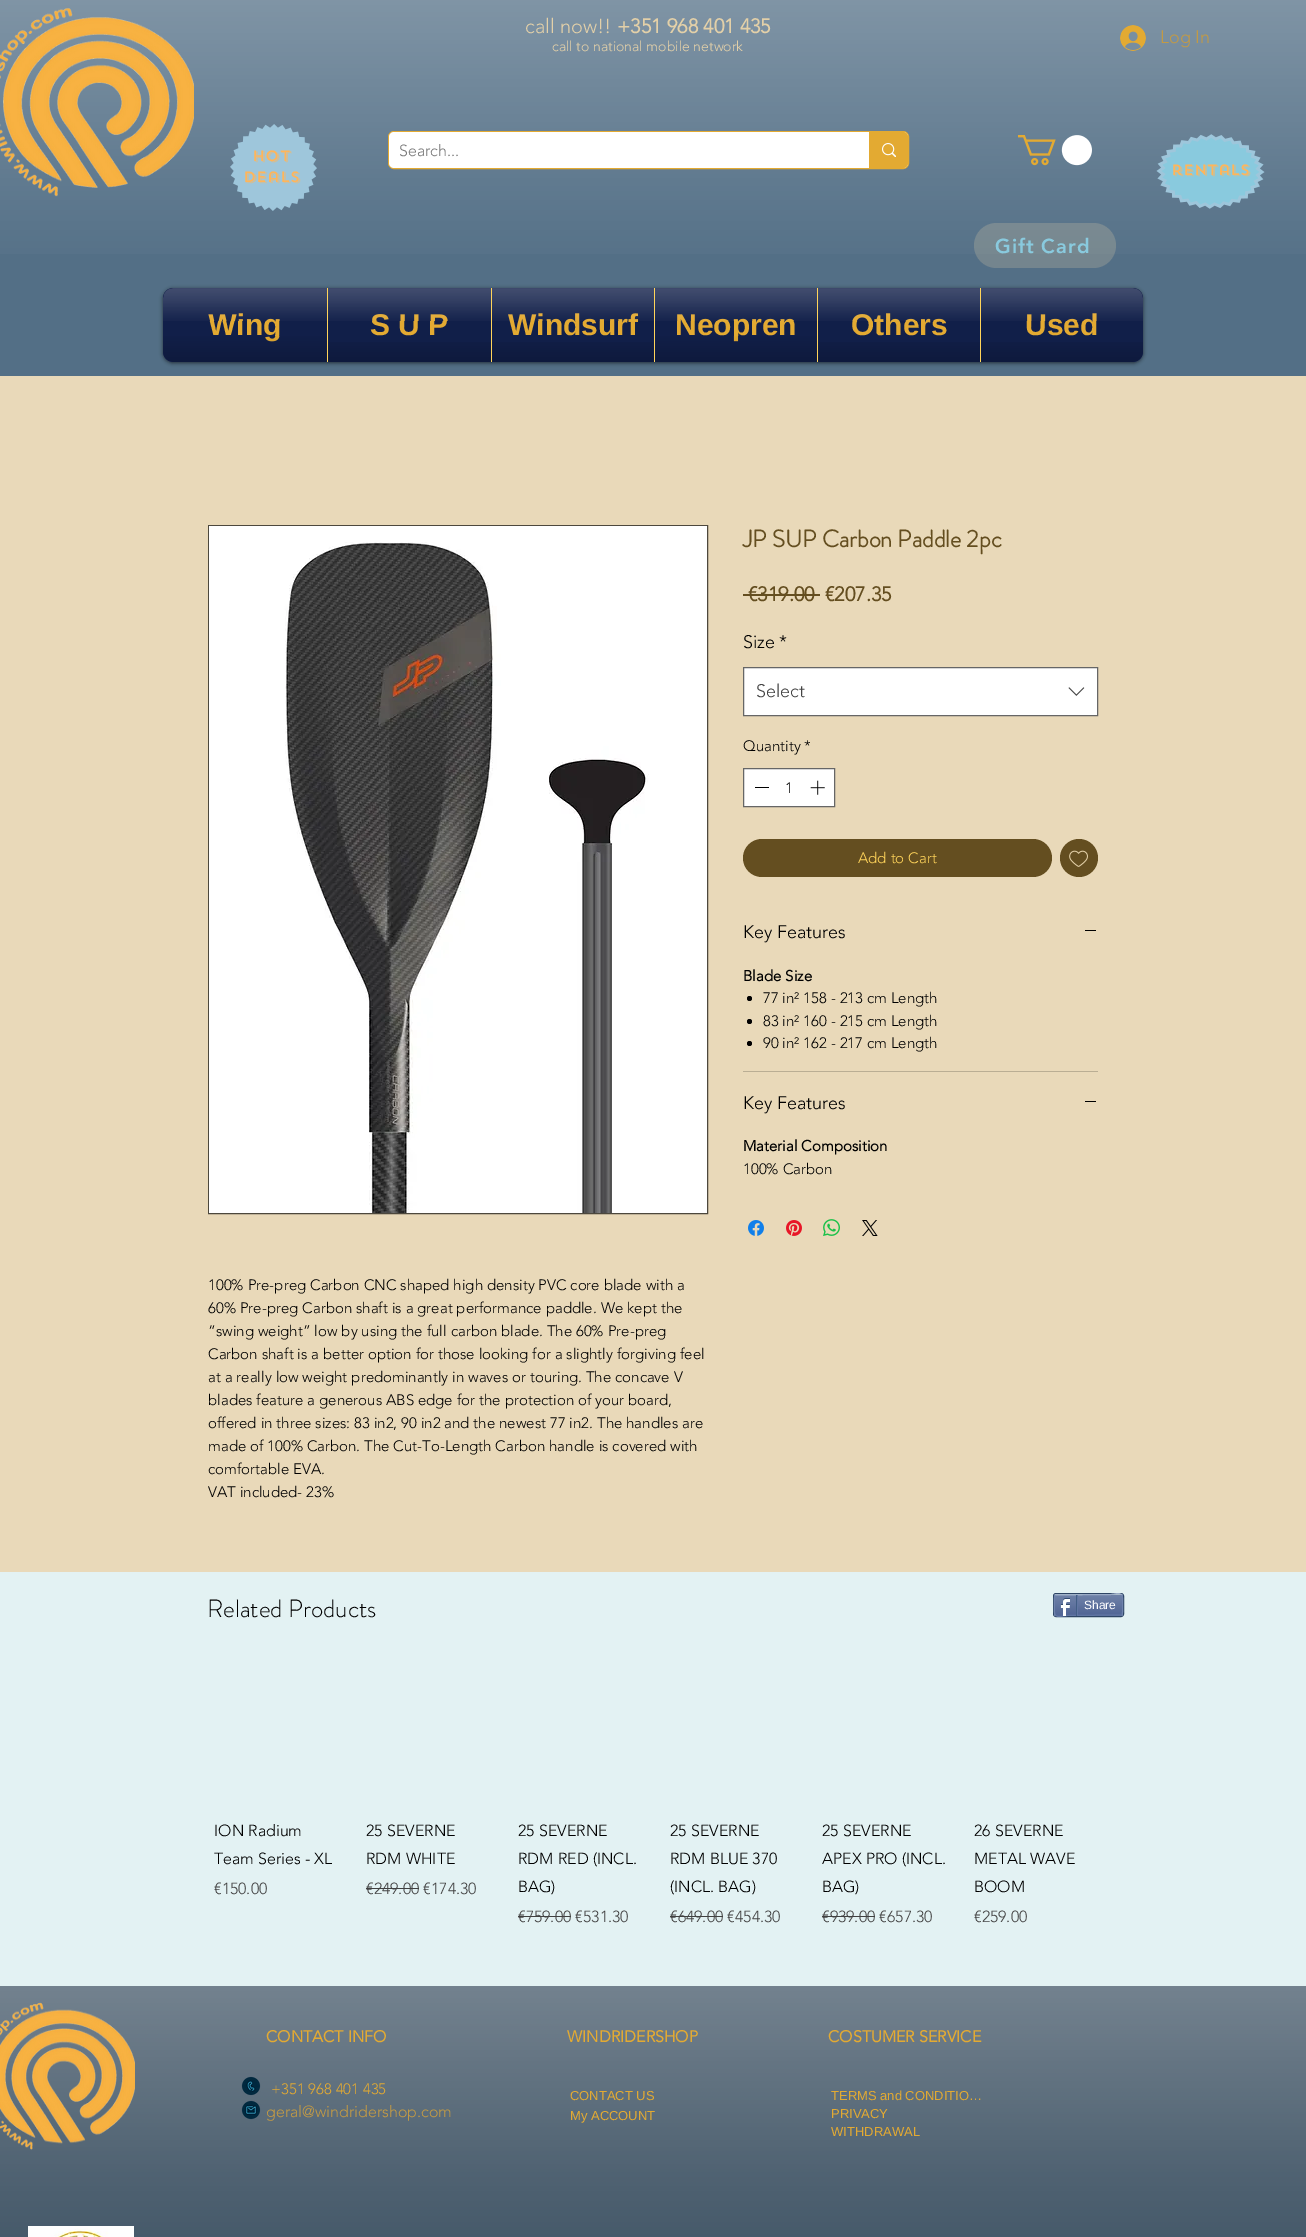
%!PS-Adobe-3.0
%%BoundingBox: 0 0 1306 2237
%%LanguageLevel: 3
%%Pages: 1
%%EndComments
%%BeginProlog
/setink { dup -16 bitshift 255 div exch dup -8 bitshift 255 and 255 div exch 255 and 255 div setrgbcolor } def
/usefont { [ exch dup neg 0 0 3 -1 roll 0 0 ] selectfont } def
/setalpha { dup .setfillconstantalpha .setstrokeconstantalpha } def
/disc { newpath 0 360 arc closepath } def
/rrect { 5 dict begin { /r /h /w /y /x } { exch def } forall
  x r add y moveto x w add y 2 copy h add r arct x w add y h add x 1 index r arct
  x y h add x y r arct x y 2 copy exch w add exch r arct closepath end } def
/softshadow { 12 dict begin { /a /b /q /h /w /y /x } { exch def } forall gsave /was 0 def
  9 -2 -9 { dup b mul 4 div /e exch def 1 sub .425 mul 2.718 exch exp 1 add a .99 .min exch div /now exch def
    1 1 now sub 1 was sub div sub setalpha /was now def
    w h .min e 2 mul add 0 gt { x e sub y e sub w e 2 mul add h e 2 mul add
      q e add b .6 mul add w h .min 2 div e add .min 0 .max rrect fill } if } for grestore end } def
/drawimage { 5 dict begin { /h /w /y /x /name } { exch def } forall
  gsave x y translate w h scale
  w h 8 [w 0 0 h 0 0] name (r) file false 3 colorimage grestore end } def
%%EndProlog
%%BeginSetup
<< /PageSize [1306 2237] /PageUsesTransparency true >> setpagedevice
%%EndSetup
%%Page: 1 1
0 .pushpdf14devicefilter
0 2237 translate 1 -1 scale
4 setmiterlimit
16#E9D9B9 setink
0 0 1306 2237 rectfill
16#536F86 setink
0 0 1306 376 rectfill
(img1.raw) 0 0 1306 254 drawimage
(img2.raw) 0 8 194 189 drawimage
/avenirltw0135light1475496-Light 20 usefont
16#E3D0A8 setink
525 33 moveto (call now!!) show
/avenirltw0135light1475496-Bold 20 usefont
617 33 moveto (+351 968 401 435) show
/avenirltw0135light1475496-Light 14 usefont
552 51 moveto (call to national mobile network) show
(img3.raw) 1120 25 26 26 drawimage
/avenirltw0135light1475496-Light 18 usefont
16#C39A44 setink
1160 43 moveto (Log In) show
(img4.raw) 230 124 87 87 drawimage
16#E3AA32 setink
388.5 131.5 520 37 5.5 rrect stroke
16#FFFFFF setink
389 132 519 36 5 rrect fill
/avenirltw0135light1475496-Light 16 usefont
16#787878 setink
399 156 moveto (Search...) show
16#E3AA32 setink
869 132 moveto 903 132 lineto 906 132 908 134 908 137 curveto 908 163 lineto 908 166 906 168 903 168 curveto 869 168 lineto closepath fill
(img5.raw) 882 143 14 14 drawimage
(img6.raw) 1018 135 74 31 drawimage
(img7.raw) 1156 134 109 75 drawimage
/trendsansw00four-Medium 15 usefont
16#FFB55A setink
[
    [(HOT) 252 161]
    [(deals) 243 182]
    [(rentals) 1171 175]
] { aload pop moveto show } forall
0.23 setalpha
16#E3D0A8 setink
974 223 142 45 22.5 rrect fill
/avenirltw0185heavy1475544-Black 20 usefont
1 setalpha
16#89CADE setink
995 253 moveto 1 0 (Gift Card) ashow
16#000000 setink
163 289 980 74 10 2 0.6 softshadow
(img8.raw) 163 288 980 10 drawimage
(img9.raw) 163 352 980 10 drawimage
16#111F49 setink
173 288 moveto 327 288 lineto 327 362 lineto 173 362 lineto 167.5 362 163 357.5 163 352 curveto 163 298 lineto 163 292.5 167.5 288 173 288 curveto closepath fill
/LiberationSans-Bold 30 usefont
16#E3AA32 setink
208 335 moveto (Wing) show
(img10.raw) 163 288 164 33 drawimage
(img11.raw) 163 336 164 26 drawimage
16#111F49 setink
328 288 163 74 rectfill
16#FFD45A setink
327 288 1 74 rectfill
16#E3AA32 setink
370 335 moveto (S U P) show
(img12.raw) 328 288 163 33 drawimage
(img13.raw) 328 342 163 20 drawimage
16#111F49 setink
492 288 162 74 rectfill
16#FFD45A setink
491 288 1 74 rectfill
16#E3AA32 setink
508 335 moveto (Windsurf) show
(img14.raw) 492 288 162 33 drawimage
(img15.raw) 492 342 162 20 drawimage
16#111F49 setink
655 288 162 74 rectfill
16#FFD45A setink
654 288 1 74 rectfill
16#E3AA32 setink
675 335 moveto (Neopren) show
(img16.raw) 655 288 162 33 drawimage
(img17.raw) 655 336 162 26 drawimage
16#111F49 setink
818 288 162 74 rectfill
16#FFD45A setink
817 288 1 74 rectfill
16#E3AA32 setink
851 335 moveto (Others) show
(img18.raw) 818 288 162 33 drawimage
(img15.raw) 818 342 162 20 drawimage
16#111F49 setink
980 288 moveto 1133 288 lineto 1138.5 288 1143 292.5 1143 298 curveto 1143 352 lineto 1143 357.5 1138.5 362 1133 362 curveto 980 362 lineto closepath fill
16#FFD45A setink
980 288 1 74 rectfill
16#E3AA32 setink
1025 335 moveto (Used) show
(img19.raw) 981 288 162 33 drawimage
(img20.raw) 981 342 162 20 drawimage
/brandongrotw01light-Bold 24 usefont
16#644E20 setink
743 547 moveto (JP SUP Carbon Paddle 2pc) show
/avenirltw0135light1475496-Bold 20 usefont
748 601 moveto (€319.00) show
743 594 77 2 rectfill
825 601 moveto (€207.35) show
/avenirltw0135light1475496-Light 18 usefont
16#000000 setink
743 648 moveto (Size) show
779 648 moveto (*) show
16#FFFFFF setink
743.5 667.5 moveto 1097.5 667.5 lineto 1097.5 715.5 lineto 743.5 715.5 lineto closepath gsave fill grestore
16#666666 setink
stroke
16#444444 setink
756 697 moveto (Select) show
(img21.raw) 1068 687 17 9 drawimage
/avenirltw0135light1475496-Light 15 usefont
16#000000 setink
743 751 moveto (Quantity *) show
16#FFFFFF setink
743.5 768.5 moveto 834.5 768.5 lineto 834.5 806.5 lineto 743.5 806.5 lineto closepath gsave fill grestore
16#666666 setink
stroke
16#000000 setink
755 787 14 1 rectfill
785 793 moveto (1) show
(img22.raw) 810 780 15 15 drawimage
16#644E20 setink
743 839 309 38 19 rrect fill
16#FFD45A setink
858 863 moveto (Add to Cart) show
16#644E20 setink
1079 858 19 disc fill
(img23.raw) 1069 850 19 17 drawimage
16#BAAE94 setink
743 1071 355 1 rectfill
/avenirltw0135light1475496-Light 18 usefont
16#000000 setink
743 938 moveto (Key Features) show
1085 930 11 1 rectfill
/avenirltw0135light1475496-Bold 15 usefont
743 981 moveto (Blade Size) show
749.5 998.5 2.5 disc fill
/avenirltw0135light1475496-Light 15 usefont
763 1003 moveto (77 in² 158 - 213 cm Length) show
749.5 1021.5 2.5 disc fill
763 1026 moveto (83 in² 160 - 215 cm Length) show
749.5 1043.5 2.5 disc fill
763 1048 moveto (90 in² 162 - 217 cm Length) show
/avenirltw0135light1475496-Light 18 usefont
743 1109 moveto (Key Features) show
1085 1101 11 1 rectfill
/avenirltw0135light1475496-Bold 15 usefont
743 1151 moveto (Material Composition) show
/avenirltw0135light1475496-Light 15 usefont
743 1174 moveto (100% Carbon) show
(img24.raw) 748 1220 16 16 drawimage
(img25.raw) 786 1220 16 16 drawimage
(img26.raw) 823 1219 17 17 drawimage
(img27.raw) 862 1220 16 16 drawimage
16#4D483D setink
208.5 525.5 499 688 rectstroke
(img28.raw) 209 526 498 687 drawimage
16#000000 setink
[
    [(100% Pre-preg Carbon CNC shaped high density PVC core blade with a) 208 1290]
    [(60% Pre-preg Carbon shaft is a great performance paddle. We kept the) 208 1313]
    [(“swing weight” low by using the full carbon blade. The 60% Pre-preg) 208 1336]
    [(Carbon shaft is a better option for those looking for a slightly forgiving feel) 208 1359]
    [(at a really low weight predominantly in waves or touring. The concave V) 208 1382]
    [(blades feature a generous ABS edge for the protection of your board,) 208 1405]
    [(offered in three sizes: 83 in2, 90 in2 and the newest 77 in2. The handles are) 208 1428]
    [(made of 100% Carbon. The Cut-To-Length Carbon handle is covered with) 208 1451]
    [(comfortable EVA.) 208 1474]
    [(VAT included- 23%) 208 1497]
] { aload pop moveto show } forall
16#E3F2F3 setink
0 1572 1306 414 rectfill
/brandongrotw01light-Light 25 usefont
16#000000 setink
207 1617 moveto (Related Products) show
/avenirltw0135light1475496-Light 16 usefont
214 1836 moveto (ION Radium) show
214 1864 moveto (Team Series - XL) show
16#444444 setink
214 1894 moveto (€150.00) show
16#000000 setink
366 1836 moveto (25 SEVERNE) show
366 1864 moveto (RDM WHITE) show
16#444444 setink
366 1894 moveto (€249.00 €174.30) show
16#404040 setink
366 1888 53 1 rectfill
16#000000 setink
[
    [(25 SEVERNE) 518 1836]
    [(RDM RED \(INCL.) 518 1864]
    [(BAG\)) 518 1892]
] { aload pop moveto show } forall
16#444444 setink
518 1922 moveto (€759.00 €531.30) show
16#404040 setink
518 1916 53 1 rectfill
16#000000 setink
[
    [(25 SEVERNE) 670 1836]
    [(RDM BLUE 370) 670 1864]
    [(\(INCL. BAG\)) 670 1892]
] { aload pop moveto show } forall
16#444444 setink
670 1922 moveto (€649.00 €454.30) show
16#404040 setink
670 1916 53 1 rectfill
16#000000 setink
[
    [(25 SEVERNE) 822 1836]
    [(APEX PRO \(INCL.) 822 1864]
    [(BAG\)) 822 1892]
] { aload pop moveto show } forall
16#444444 setink
822 1922 moveto (€939.00 €657.30) show
16#404040 setink
822 1916 53 1 rectfill
16#000000 setink
[
    [(26 SEVERNE) 974 1836]
    [(METAL WAVE) 974 1864]
    [(BOOM) 974 1892]
] { aload pop moveto show } forall
16#444444 setink
974 1922 moveto (€259.00) show
16#2D4565 setink
1053.5 1593.5 70 23 2.5 rrect stroke
(img29.raw) 1054 1595 69 21 drawimage
16#9AABC6 setink
1055 1595 moveto 1110 1594.5 lineto 1114 1594.5 1119 1592 1122 1595 curveto stroke
16#6F83AD setink
1122 1595 moveto 1123 1595.5 1123 1614.5 1122 1615 curveto stroke
16#6176A3 setink
1122 1615 moveto 1067 1615.5 lineto 1063 1615.5 1058 1618 1055 1615 curveto stroke
16#6F83AD setink
1055 1615 moveto 1054 1614.5 1054 1595.5 1055 1595 curveto stroke
(img30.raw) 1060 1598 10 18 drawimage
16#425E85 setink
1076 1595 1 21 rectfill
/LiberationSans-Regular 12 usefont
16#FFFFFF setink
1084 1609 moveto (Share) show
16#6176A3 setink
1077 1595 1 20 rectfill
16#425667 setink
0 1986 1306 251 rectfill
(img31.raw) 0 1986 1306 251 drawimage
(img32.raw) 0 2002 135 148 drawimage
/avenirltw0135light1475496-Bold 16 usefont
16#E3AA32 setink
266 2042 moveto (CONTACT INFO) show
/avenirltw0135light1475496-Light 15 usefont
271 2094 moveto (+351 968 401 435) show
/avenirltw0135light1475496-Light 16 usefont
16#C39A44 setink
266 2117 moveto (geral@windridershop.com) show
/avenirltw0135light1475496-Bold 16 usefont
16#E3AA32 setink
567 2042 moveto (WINDRIDERSHOP) show
828 2042 moveto (COSTUMER SERVICE) show
(img33.raw) 241 2076 20 20 drawimage
/LiberationSans-Regular 13 usefont
570 2100 moveto (CONTACT US) show
831 2100 moveto (TERMS and CONDITIO…) show
(img34.raw) 241 2100 20 20 drawimage
[
    [(My ACCOUNT) 570 2120]
    [(PRIVACY) 831 2118]
    [(WITHDRAWAL) 831 2136]
] { aload pop moveto show } forall
(img35.raw) 28 2226 106 11 drawimage
.poppdf14devicefilter showpage
%%EOF
